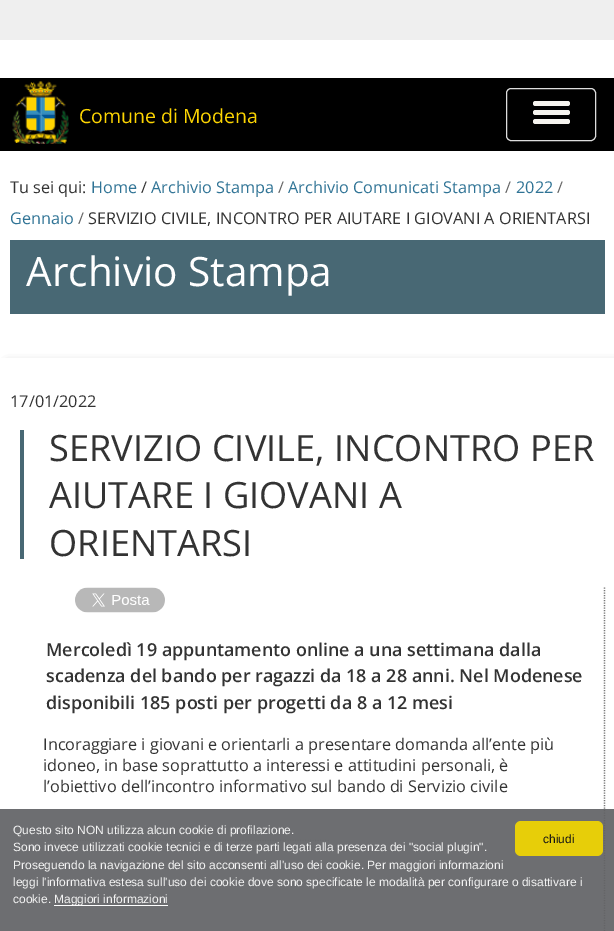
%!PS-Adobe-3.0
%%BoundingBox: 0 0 614 931
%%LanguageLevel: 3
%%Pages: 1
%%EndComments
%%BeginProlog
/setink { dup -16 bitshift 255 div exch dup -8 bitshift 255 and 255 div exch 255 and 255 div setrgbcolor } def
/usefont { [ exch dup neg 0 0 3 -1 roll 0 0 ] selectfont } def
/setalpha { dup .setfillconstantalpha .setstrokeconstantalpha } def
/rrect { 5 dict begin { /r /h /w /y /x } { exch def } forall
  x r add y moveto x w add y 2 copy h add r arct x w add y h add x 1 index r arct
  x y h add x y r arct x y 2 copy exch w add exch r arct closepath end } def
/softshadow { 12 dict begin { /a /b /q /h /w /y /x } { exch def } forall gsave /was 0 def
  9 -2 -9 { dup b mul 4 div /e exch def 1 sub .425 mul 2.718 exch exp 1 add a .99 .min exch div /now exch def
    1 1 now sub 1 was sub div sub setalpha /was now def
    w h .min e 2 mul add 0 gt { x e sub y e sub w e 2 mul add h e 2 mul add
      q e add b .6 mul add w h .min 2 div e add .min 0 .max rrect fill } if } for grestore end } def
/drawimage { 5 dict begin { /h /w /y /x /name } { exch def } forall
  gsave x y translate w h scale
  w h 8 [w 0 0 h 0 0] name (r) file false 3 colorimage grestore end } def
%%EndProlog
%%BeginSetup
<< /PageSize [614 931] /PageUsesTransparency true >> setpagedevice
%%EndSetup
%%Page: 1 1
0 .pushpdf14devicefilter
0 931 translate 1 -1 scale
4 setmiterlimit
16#FFFFFF setink
0 0 614 931 rectfill
16#EFEFEF setink
0 0 614 40 rectfill
16#000000 setink
0 78 614 73 rectfill
16#DDDDDD setink
506.5 88.5 89 52 4.5 rrect stroke
16#F6F4EF setink
533 101 37 5 2.5 rrect fill
533 110 37 5 2.5 rrect fill
533 119 37 5 2.5 rrect fill
(img1.raw) 12 81 57 63 drawimage
/OpenSans-Regular 19.5 usefont
16#FDD502 setink
79 123 moveto (Comune di Modena) show
/OpenSans-Regular 16.25 usefont
16#333333 setink
10 193 moveto (Tu sei qui:) show
16#2F7395 setink
91 193 moveto (Home) show
16#333333 setink
141 193 moveto (/) show
16#2F7395 setink
151 193 moveto (Archivio Stampa) show
16#666666 setink
278 193 moveto (/) show
16#2F7395 setink
288 193 moveto (Archivio Comunicati Stampa) show
16#666666 setink
505 193 moveto (/) show
16#2F7395 setink
516 193 moveto (2022) show
16#666666 setink
557 193 moveto (/) show
16#2F7395 setink
10 224 moveto (Gennaio) show
16#666666 setink
78 224 moveto (/) show
16#333333 setink
88 224 moveto (SERVIZIO CIVILE, INCONTRO PER AIUTARE I GIOVANI A ORIENTARSI) show
16#486874 setink
10 240 595 74 rectfill
/OpenSans-Regular 40.5 usefont
16#FFFFFF setink
26 286 moveto (Archivio Stampa) show
16#808080 setink
8 365 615 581 0 5 1 softshadow
16#FFFFFF setink
0 358 614 573 rectfill
/OpenSans-Regular 16.25 usefont
16#333333 setink
10 407 moveto (17/01/2022) show
16#486874 setink
20 430 4 129 rectfill
/OpenSans-Regular 36.25 usefont
16#333333 setink
[
    [(SERVIZIO CIVILE, INCONTRO PER) 49 461]
    [(AIUTARE I GIOVANI A) 49 508]
    [(ORIENTARSI) 49 556]
] { aload pop moveto show } forall
16#777777 setink
1.2 setlinewidth
[1.25 1.25] 0 setdash
604.5 587.5 moveto 604.5 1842.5 lineto stroke
(img2.raw) 75 587 90 26 drawimage
/OpenSans-SemiBold 17.9 usefont
16#333333 setink
[
    [(Mercoledì 19 appuntamento online a una settimana dalla) 46 656]
    [(scadenza del bando per ragazzi da 18 a 28 anni. Nel Modenese) 46 682]
    [(disponibili 185 posti per progetti da 8 a 12 mesi) 46 709]
] { aload pop moveto show } forall
/OpenSans-Regular 16.25 usefont
[
    [(Incoraggiare i giovani e orientarli a presentare domanda all’ente più) 43 750]
    [(idoneo, in base soprattutto a interessi e attitudini personali, è) 43 771]
    [(l’obiettivo dell’incontro informativo sul bando di Servizio civile) 43 792]
] { aload pop moveto show } forall
16#CCCCCC setink
47.5 840.5 moveto 330 840.5 lineto stroke
0.92 setalpha
16#616265 setink
0 809 614 122 rectfill
/LiberationSans-Regular 12 usefont
1 setalpha
16#F3F3F3 setink
[
    [(Questo sito NON utilizza alcun cookie di profilazione.) 13 834]
    [(Sono invece utilizzati cookie tecnici e di terze parti legati alla presenza dei "social plugin".) 13 851]
    [(Proseguendo la navigazione del sito acconsenti all'uso dei cookie. Per maggiori informazioni) 13 869]
    [(leggi l'informativa estesa sull'uso dei cookie dove sono specificate le modalità per configurare o disattivare i) 13 886]
    [(cookie.) 13 903]
] { aload pop moveto show } forall
16#FFFFFF setink
54 905 114 1 rectfill
16#F3F3F3 setink
54 903 moveto (Maggiori informazioni) show
0.92 setalpha
16#F1D600 setink
515 821 88 35 6 rrect fill
1 setalpha
16#141414 setink
543 843 moveto (chiudi) show
.poppdf14devicefilter showpage
%%EOF
